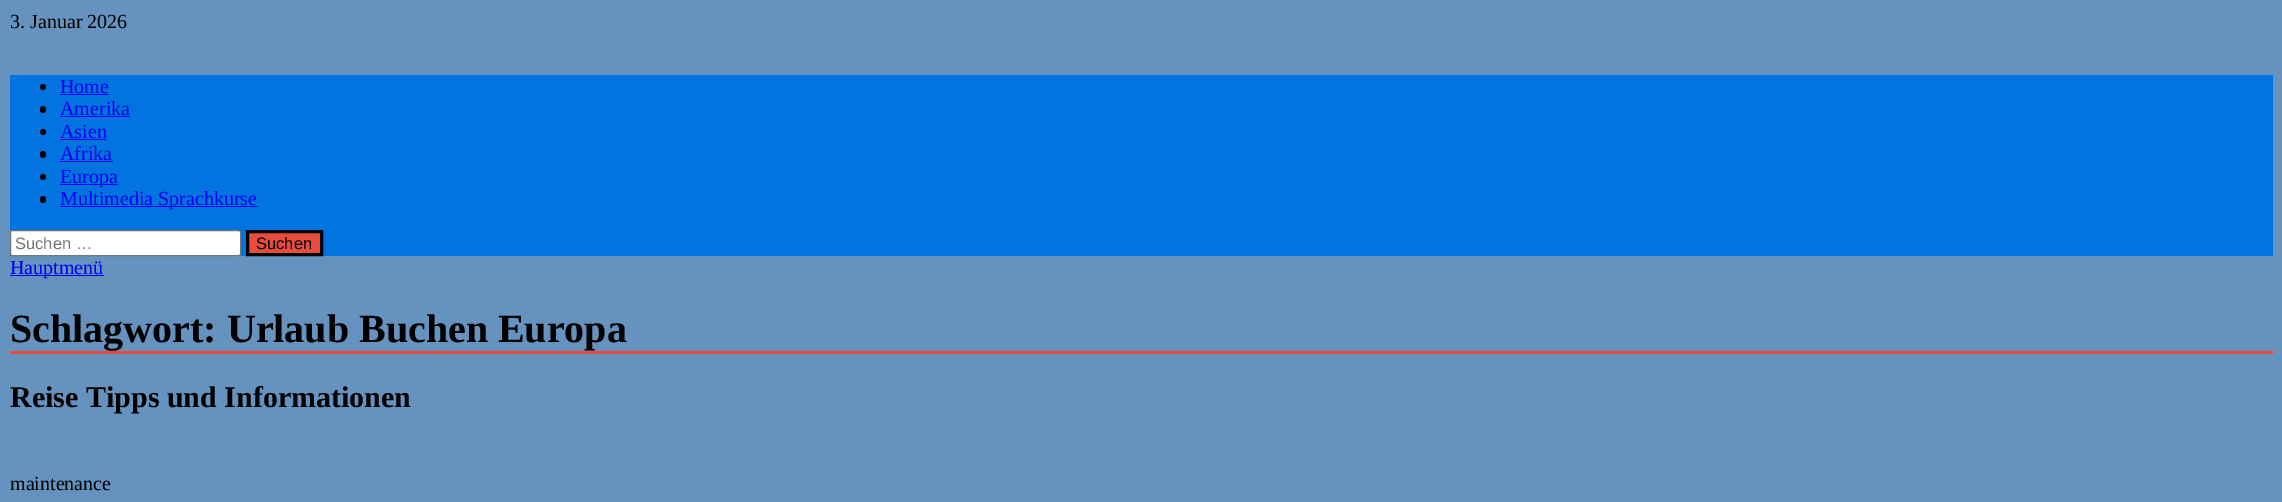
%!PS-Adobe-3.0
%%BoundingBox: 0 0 2282 502
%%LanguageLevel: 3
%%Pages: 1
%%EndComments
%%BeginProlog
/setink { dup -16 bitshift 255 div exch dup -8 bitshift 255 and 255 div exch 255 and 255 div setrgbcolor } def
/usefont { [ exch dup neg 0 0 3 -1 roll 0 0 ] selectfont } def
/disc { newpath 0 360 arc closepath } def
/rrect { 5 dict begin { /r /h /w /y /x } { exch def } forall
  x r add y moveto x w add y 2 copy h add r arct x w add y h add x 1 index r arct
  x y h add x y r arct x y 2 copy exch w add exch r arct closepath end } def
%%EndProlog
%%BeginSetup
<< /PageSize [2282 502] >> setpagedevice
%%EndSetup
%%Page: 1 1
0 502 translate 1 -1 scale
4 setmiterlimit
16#6592BF setink
0 0 2282 502 rectfill
/LiberationSerif-Regular 20 usefont
16#000000 setink
10 28 moveto (3. Januar 2026) show
16#0174DF setink
10 75 2263 181 rectfill
16#000000 setink
43 87 3 disc fill
16#0000EE setink
60 93 moveto (Home) show
60 94 49 1 rectfill
16#000000 setink
40 106 6 7 3 rrect fill
16#0000EE setink
60 115 moveto (Amerika) show
60 116 70 1 rectfill
16#000000 setink
43 132 3 disc fill
16#0000EE setink
60 138 moveto (Asien) show
60 139 46 1 rectfill
16#000000 setink
40 151 6 7 3 rrect fill
16#0000EE setink
60 160 moveto (Afrika) show
60 161 53 1 rectfill
16#000000 setink
43 177 3 disc fill
16#0000EE setink
60 184 58 1 rectfill
60 183 moveto (Europa) show
16#000000 setink
40 196 6 7 3 rrect fill
16#0000EE setink
60 206 198 1 rectfill
60 205 moveto (Multimedia Sprachkurse) show
16#FFFFFF setink
10.5 230.5 230 25 2 rrect gsave fill grestore
16#767676 setink
stroke
/LiberationSans-Regular 16.5 usefont
16#757575 setink
15 249 moveto (Suchen …) show
16#E74C3C setink
247.5 231.5 moveto 321.5 231.5 lineto 321.5 254.5 lineto 247.5 254.5 lineto closepath gsave fill grestore
16#000000 setink
3 setlinewidth
stroke
256 249 moveto (Suchen) show
16#0000EE setink
10 275 94 1 rectfill
/LiberationSerif-Regular 20 usefont
10 274 moveto (Hauptmenü) show
16#E74C3C setink
10 351 2263 3 rectfill
/LiberationSerif-Bold 40 usefont
16#000000 setink
10 342 moveto (Schlagwort: Urlaub Buchen Europa) show
/LiberationSerif-Bold 30 usefont
10 407 moveto (Reise Tipps und Informationen) show
/LiberationSerif-Regular 20 usefont
10 490 moveto (maintenance) show
showpage
%%EOF
